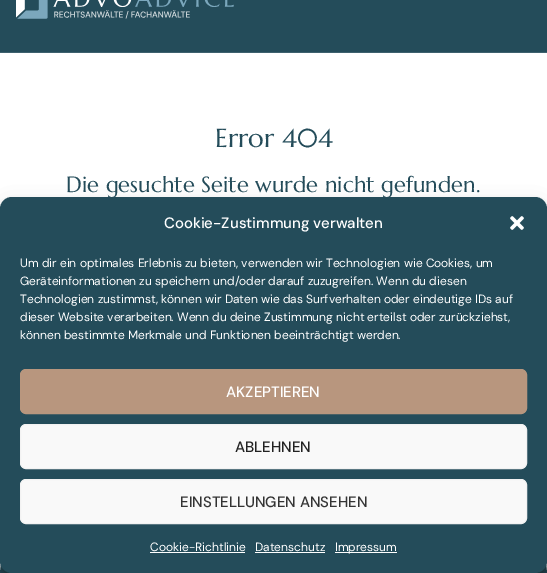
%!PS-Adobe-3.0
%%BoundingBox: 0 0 547 573
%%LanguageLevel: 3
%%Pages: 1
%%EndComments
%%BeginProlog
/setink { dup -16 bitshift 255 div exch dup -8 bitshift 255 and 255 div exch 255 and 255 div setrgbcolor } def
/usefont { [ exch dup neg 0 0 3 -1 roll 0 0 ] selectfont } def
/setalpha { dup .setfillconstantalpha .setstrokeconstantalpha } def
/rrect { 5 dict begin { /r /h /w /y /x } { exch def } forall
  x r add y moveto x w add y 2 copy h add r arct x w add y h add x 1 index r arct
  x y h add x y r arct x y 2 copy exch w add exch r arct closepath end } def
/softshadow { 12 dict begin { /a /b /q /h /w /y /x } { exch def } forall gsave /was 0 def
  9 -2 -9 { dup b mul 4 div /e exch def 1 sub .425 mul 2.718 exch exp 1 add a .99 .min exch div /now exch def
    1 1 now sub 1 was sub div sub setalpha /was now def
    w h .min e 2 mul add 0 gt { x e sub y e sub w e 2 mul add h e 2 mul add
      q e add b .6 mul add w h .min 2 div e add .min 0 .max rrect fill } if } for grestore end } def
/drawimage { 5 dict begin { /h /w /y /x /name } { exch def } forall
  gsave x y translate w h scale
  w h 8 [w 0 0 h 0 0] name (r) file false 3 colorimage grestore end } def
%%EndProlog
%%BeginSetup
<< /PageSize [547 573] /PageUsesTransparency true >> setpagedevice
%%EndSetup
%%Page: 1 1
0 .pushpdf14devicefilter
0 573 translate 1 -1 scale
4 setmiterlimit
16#FFFFFF setink
0 0 547 573 rectfill
16#244C5A setink
0 0 547 52 rectfill
16#3E616E setink
0 52 547 1 rectfill
(img1.raw) 16 0 218 19 drawimage
/Marcellus-Regular 26 usefont
16#244C5A setink
215 147 moveto (Error 404) show
/Marcellus-Regular 22 usefont
66 192 moveto (Die gesuchte Seite wurde nicht gefunden.) show
50 525 moveto 497 525 lineto 524.5 525 547 547.5 547 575 curveto 547 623 lineto 0 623 lineto 0 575 lineto 0 547.5 22.5 525 50 525 curveto closepath fill
16#000000 setink
0 203 547 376 12 3 0.23 softshadow
0 207 547 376 12 10 0.19 softshadow
36 467 499 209 56 15.5 0.18 softshadow
16#244C5A setink
0 197 547 376 12 rrect fill
/DMSans-Medium 15 usefont
16#FFFFFF setink
164 228 moveto (Cookie-Zustimmung verwalten) show
(img2.raw) 510 216 14 14 drawimage
/DMSans-Regular 12 usefont
[
    [(Um dir ein optimales Erlebnis zu bieten, verwenden wir Technologien wie Cookies, um) 20 267]
    [(Geräteinformationen zu speichern und/oder darauf zuzugreifen. Wenn du diesen) 20 285]
    [(Technologien zustimmst, können wir Daten wie das Surfverhalten oder eindeutige IDs auf) 20 303]
    [(dieser Website verarbeiten. Wenn du deine Zustimmung nicht erteilst oder zurückziehst,) 20 321]
    [(können bestimmte Merkmale und Funktionen beeinträchtigt werden.) 20 339]
] { aload pop moveto show } forall
16#B8967E setink
20.5 369.5 506 44 5.5 rrect gsave fill grestore
stroke
/DMSans-Medium 15 usefont
16#FFFFFF setink
226 397 moveto (AKZEPTIEREN) show
16#F9F9F9 setink
20.5 424.5 506 44 5.5 rrect gsave fill grestore
16#F2F2F2 setink
stroke
16#222222 setink
235 452 moveto (ABLEHNEN) show
16#F9F9F9 setink
20.5 479.5 506 44 5.5 rrect gsave fill grestore
16#F2F2F2 setink
stroke
16#333333 setink
180 507 moveto (EINSTELLUNGEN ANSEHEN) show
/DMSans-Regular 12 usefont
16#FFFFFF setink
150 551 moveto (Cookie-Richtlinie) show
150 552 95 1 rectfill
255 551 moveto (Datenschutz) show
255 552 70 1 rectfill
335 552 62 1 rectfill
335 551 moveto (Impressum) show
.poppdf14devicefilter showpage
%%EOF
